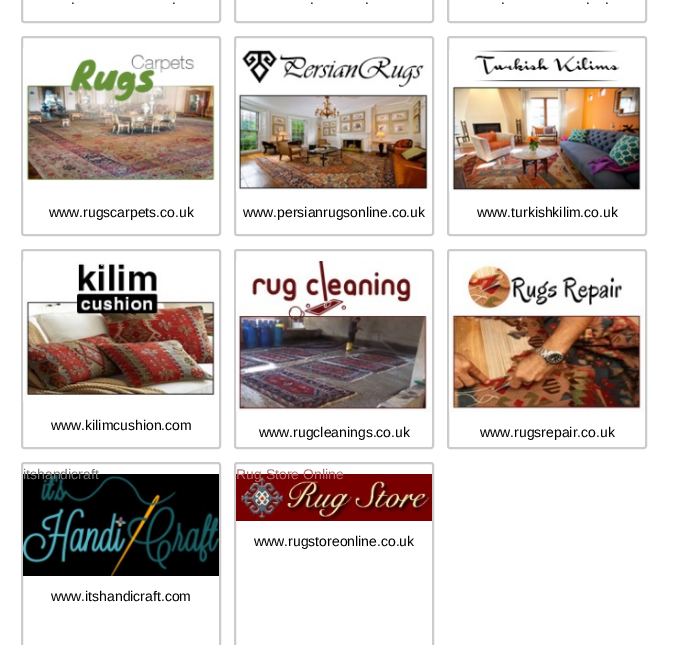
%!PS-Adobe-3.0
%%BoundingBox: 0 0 675 645
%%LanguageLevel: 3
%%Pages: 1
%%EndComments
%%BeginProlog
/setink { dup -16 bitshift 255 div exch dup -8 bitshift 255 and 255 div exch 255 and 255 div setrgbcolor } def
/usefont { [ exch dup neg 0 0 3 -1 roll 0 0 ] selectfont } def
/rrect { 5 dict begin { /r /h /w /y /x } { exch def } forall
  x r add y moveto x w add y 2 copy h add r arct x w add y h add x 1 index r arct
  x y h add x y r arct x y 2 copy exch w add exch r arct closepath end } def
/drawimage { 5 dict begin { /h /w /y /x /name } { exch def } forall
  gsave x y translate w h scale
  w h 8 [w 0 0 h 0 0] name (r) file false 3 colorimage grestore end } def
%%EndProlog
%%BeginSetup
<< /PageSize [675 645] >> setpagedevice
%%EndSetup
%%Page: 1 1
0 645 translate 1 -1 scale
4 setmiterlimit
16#FFFFFF setink
0 0 675 645 rectfill
16#CCCCCC setink
2 setlinewidth
22 -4 198 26 2 rrect stroke
/LiberationSans-Regular 14 usefont
16#000000 setink
71 4 moveto (.) show
172 4 moveto (.) show
16#CCCCCC setink
235 -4 198 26 2 rrect stroke
16#000000 setink
310 4 moveto (.) show
365 4 moveto (.) show
16#CCCCCC setink
448 -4 198 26 2 rrect stroke
16#000000 setink
[
    [(.) 501 4]
    [(.) 586 4]
    [(.) 605 4]
] { aload pop moveto show } forall
16#CCCCCC setink
22 37 198 198 2 rrect stroke
(img1.raw) 23 48 194 133 drawimage
16#000000 setink
49 217 moveto (www.rugscarpets.co.uk) show
16#CCCCCC setink
235 37 198 198 2 rrect stroke
(img2.raw) 236 48 192 144 drawimage
16#000000 setink
243 217 moveto (www.persianrugsonline.co.uk) show
16#CCCCCC setink
448 37 198 198 2 rrect stroke
(img3.raw) 449 50 192 142 drawimage
16#000000 setink
477 217 moveto (www.turkishkilim.co.uk) show
16#CCCCCC setink
22 250 198 198 2 rrect stroke
(img4.raw) 23 261 195 140 drawimage
16#F6F6F6 setink
100 266 moveto (.) show
16#000000 setink
51 430 moveto (www.kilimcushion.com) show
16#CCCCCC setink
235 250 198 198 2 rrect stroke
(img5.raw) 236 261 195 151 drawimage
16#000000 setink
259 437 moveto (www.rugcleanings.co.uk) show
16#CCCCCC setink
448 250 198 198 2 rrect stroke
(img6.raw) 449 261 196 151 drawimage
16#000000 setink
480 437 moveto (www.rugsrepair.co.uk) show
16#CCCCCC setink
22 463 198 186 2 rrect stroke
(img7.raw) 23 474 196 102 drawimage
16#747676 setink
23 479 moveto (itshandicraft) show
16#000000 setink
51 601 moveto (www.itshandicraft.com) show
16#CCCCCC setink
235 463 198 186 2 rrect stroke
(img8.raw) 236 474 196 47 drawimage
16#B26E6E setink
236 479 moveto (Rug Store Online) show
16#000000 setink
254 546 moveto (www.rugstoreonline.co.uk) show
showpage
%%EOF
